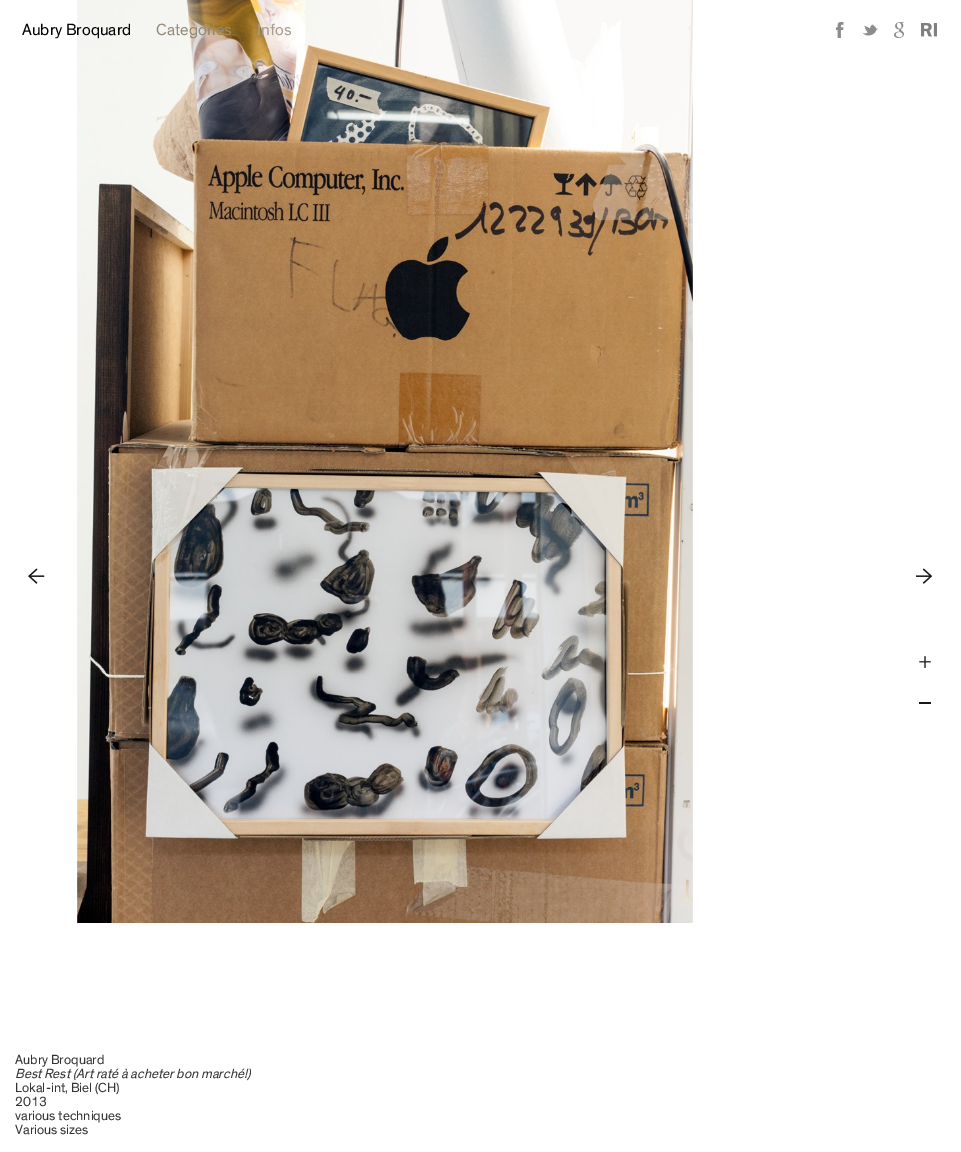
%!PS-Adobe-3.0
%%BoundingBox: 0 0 961 1152
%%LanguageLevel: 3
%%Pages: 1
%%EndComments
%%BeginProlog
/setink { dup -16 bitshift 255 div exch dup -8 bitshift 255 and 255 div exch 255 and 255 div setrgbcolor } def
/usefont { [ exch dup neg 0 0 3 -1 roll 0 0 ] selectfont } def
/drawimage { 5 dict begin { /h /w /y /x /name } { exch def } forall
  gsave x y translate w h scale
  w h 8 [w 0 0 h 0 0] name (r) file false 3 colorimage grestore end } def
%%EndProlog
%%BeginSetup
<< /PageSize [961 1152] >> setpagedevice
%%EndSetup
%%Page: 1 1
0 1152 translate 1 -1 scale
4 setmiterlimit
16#FFFFFF setink
0 0 961 1152 rectfill
(img11.raw) 414 672 279 251 drawimage
(img9.raw) 414 336 279 338 drawimage
(img7.raw) 414 0 279 338 drawimage
(img10.raw) 77 672 338 251 drawimage
(img8.raw) 77 336 338 338 drawimage
(img6.raw) 77 0 338 338 drawimage
/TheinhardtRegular-Regular 16.5 usefont
16#000000 setink
22 35 moveto (Aubry Broquard) show
16#948A78 setink
156 35 moveto (Categories) show
16#A69D94 setink
257 35 moveto (Infos) show
(img1.raw) 836 22 8 16 drawimage
(img2.raw) 862 24 16 12 drawimage
(img3.raw) 894 22 11 16 drawimage
(img4.raw) 921 23 16 14 drawimage
(img5.raw) 28 568 17 16 drawimage
(img12.raw) 916 568 17 16 drawimage
(img13.raw) 919 656 12 12 drawimage
16#181716 setink
919 702 12 2 rectfill
/TheinhardtRegular-Regular 13.5 usefont
16#333333 setink
15 1064 moveto (Aubry Broquard) show
/TheinhardtRegular-Italic 13.5 usefont
15 1078 moveto (Best Rest \(Art raté à acheter bon marché!\)) show
/TheinhardtRegular-Regular 13.5 usefont
[
    [(Lokal-int, Biel \(CH\)) 15 1092]
    [(2013) 15 1106]
    [(various techniques) 15 1120]
    [(Various sizes) 15 1134]
] { aload pop moveto show } forall
showpage
%%EOF
